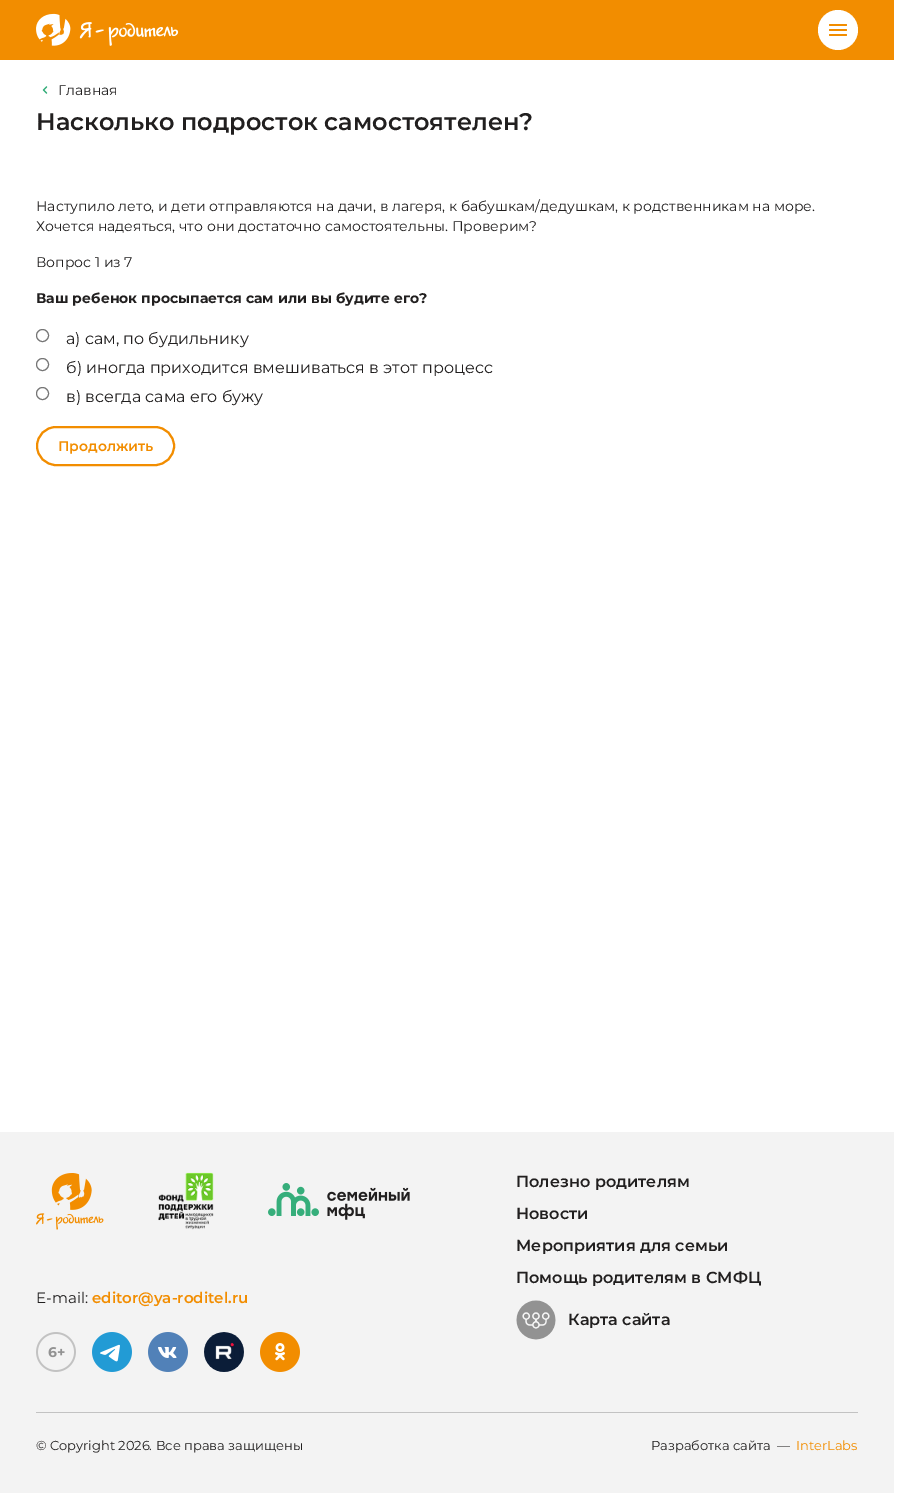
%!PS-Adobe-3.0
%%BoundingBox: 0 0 909 1493
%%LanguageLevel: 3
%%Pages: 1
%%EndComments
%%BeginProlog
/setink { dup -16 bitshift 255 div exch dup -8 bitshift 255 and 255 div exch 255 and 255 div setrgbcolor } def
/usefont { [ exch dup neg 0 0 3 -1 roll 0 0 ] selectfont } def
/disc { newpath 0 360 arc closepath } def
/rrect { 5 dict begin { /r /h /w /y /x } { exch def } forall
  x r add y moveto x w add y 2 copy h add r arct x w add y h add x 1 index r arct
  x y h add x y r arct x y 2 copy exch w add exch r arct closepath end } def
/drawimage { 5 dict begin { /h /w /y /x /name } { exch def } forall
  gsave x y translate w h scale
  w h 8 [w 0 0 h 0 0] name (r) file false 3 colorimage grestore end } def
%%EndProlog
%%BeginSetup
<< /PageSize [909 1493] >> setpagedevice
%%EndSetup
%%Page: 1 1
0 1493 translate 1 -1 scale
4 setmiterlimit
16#FFFFFF setink
0 0 909 1493 rectfill
16#F28D00 setink
0 0 894 60 rectfill
(img1.raw) 36 13 143 33 drawimage
16#FFFFFF setink
838 30 20 disc fill
16#F28D00 setink
829 24 18 2 1 rrect fill
829 29 18 2 1 rrect fill
829 34 18 2 1 rrect fill
(img2.raw) 42 86 6 8 drawimage
/Montserrat-Regular 14 usefont
16#211F1F setink
58 95 moveto (Главная) show
/Montserrat-SemiBold 24 usefont
36 130 moveto (Насколько подросток самостоятелен?) show
/Montserrat-Regular 14 usefont
[
    [(Наступило лето, и дети отправляются на дачи, в лагеря, к бабушкам/дедушкам, к родственникам на море.) 36 211]
    [(Хочется надеяться, что они достаточно самостоятельны. Проверим?) 36 231]
    [(Вопрос 1 из 7) 36 267]
] { aload pop moveto show } forall
/Montserrat-Bold 14 usefont
36 303 moveto (Ваш ребенок просыпается сам или вы будите его?) show
16#767676 setink
42.5 335.5 6 disc stroke
/Montserrat-Regular 16 usefont
16#211F1F setink
66 344 moveto (а\) сам, по будильнику) show
16#767676 setink
42.5 364.5 6 disc stroke
16#211F1F setink
66 373 moveto (б\) иногда приходится вмешиваться в этот процесс) show
16#767676 setink
42.5 393.5 6 disc stroke
16#211F1F setink
66 402 moveto (в\) всегда сама его бужу) show
16#F28D00 setink
2 setlinewidth
37 427 137 38 19 rrect stroke
/Montserrat-SemiBold 14 usefont
58 451 moveto (Продолжить) show
16#F3F3F3 setink
0 1132 894 361 rectfill
(img3.raw) 36 1173 68 57 drawimage
(img4.raw) 158 1172 56 58 drawimage
(img5.raw) 268 1183 142 37 drawimage
/Montserrat-SemiBold 16 usefont
16#211F1F setink
[
    [(Полезно родителям) 516 1187]
    [(Новости) 516 1219]
    [(Мероприятия для семьи) 516 1251]
    [(Помощь родителям в СМФЦ) 516 1283]
] { aload pop moveto show } forall
(img6.raw) 516 1300 40 40 drawimage
568 1325 moveto (Карта сайта) show
/Montserrat-Regular 15 usefont
36 1303 moveto (E-mail:) show
/Montserrat-SemiBold 15 usefont
16#F28D00 setink
92 1303 moveto (editor@ya-roditel.ru) show
(img7.raw) 36 1332 40 40 drawimage
(img8.raw) 92 1332 40 40 drawimage
(img9.raw) 148 1332 40 40 drawimage
(img10.raw) 204 1332 40 40 drawimage
(img11.raw) 260 1332 40 40 drawimage
16#C2C2C2 setink
36 1412 822 1 rectfill
/Montserrat-Regular 13 usefont
16#211F1F setink
36 1450 moveto (© Copyright 2026. Все права защищены) show
651 1450 moveto (Разработка сайта  —) show
16#F28D00 setink
796 1450 moveto (InterLabs) show
showpage
%%EOF
